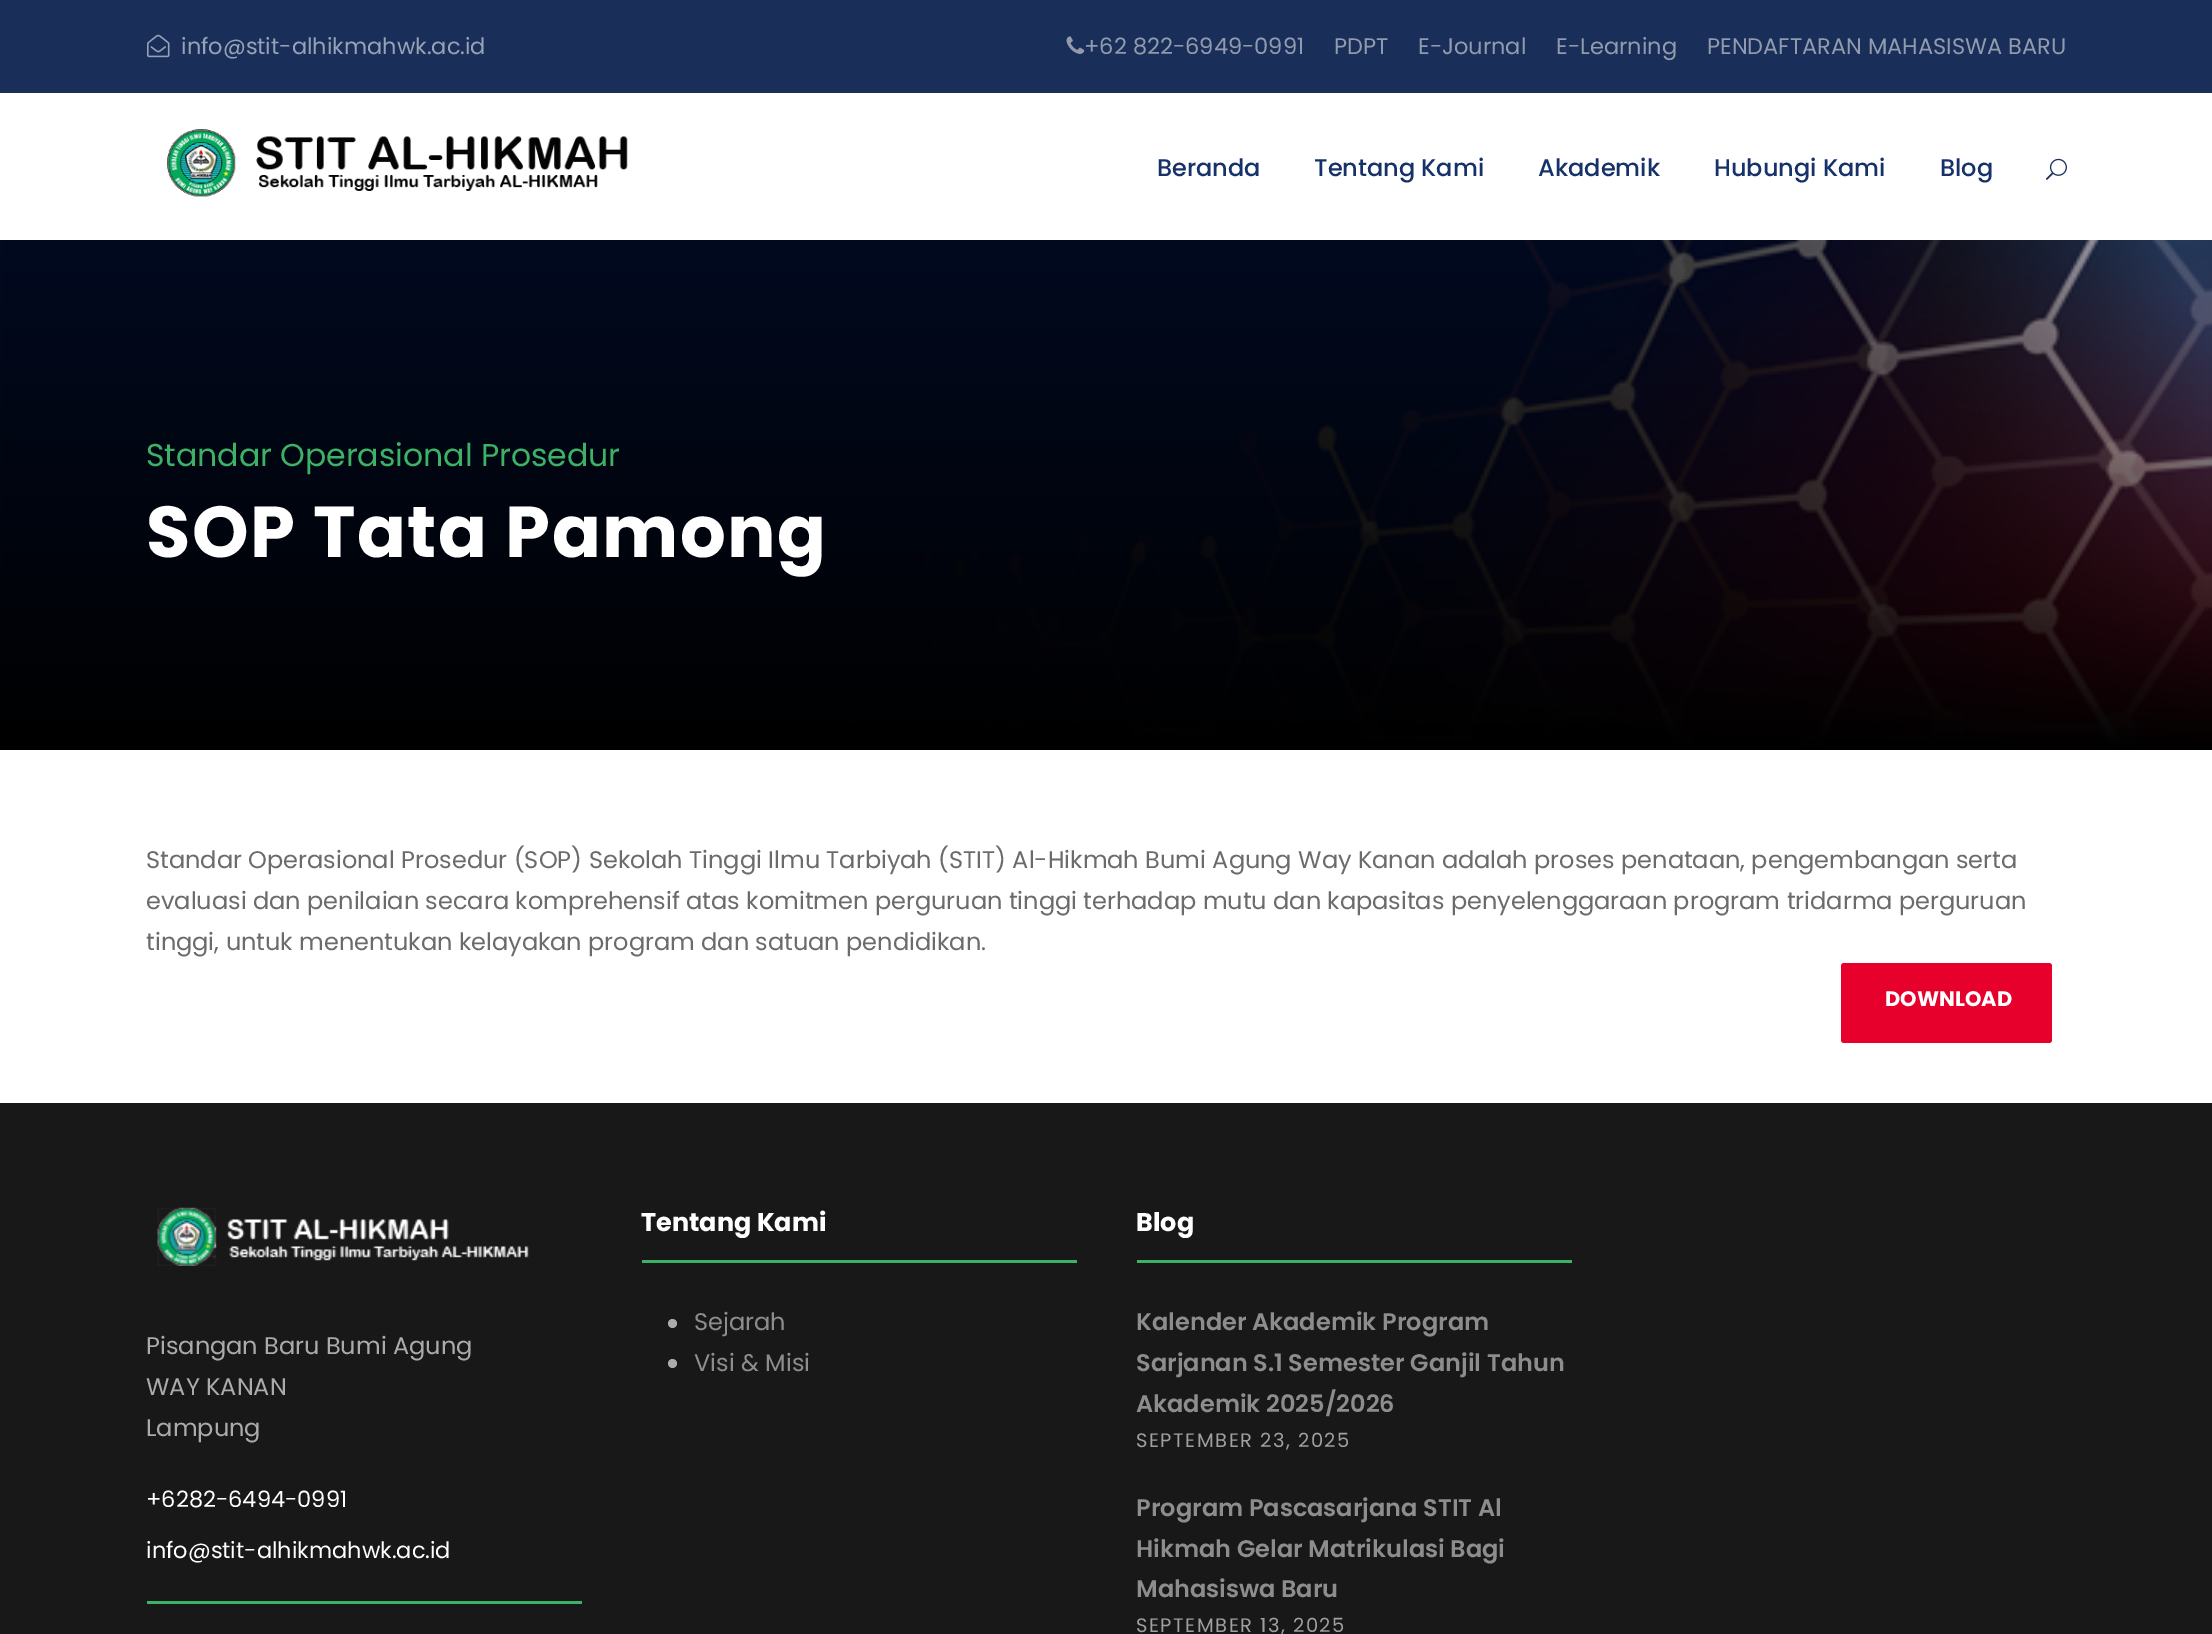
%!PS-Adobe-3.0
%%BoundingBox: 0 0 2212 1634
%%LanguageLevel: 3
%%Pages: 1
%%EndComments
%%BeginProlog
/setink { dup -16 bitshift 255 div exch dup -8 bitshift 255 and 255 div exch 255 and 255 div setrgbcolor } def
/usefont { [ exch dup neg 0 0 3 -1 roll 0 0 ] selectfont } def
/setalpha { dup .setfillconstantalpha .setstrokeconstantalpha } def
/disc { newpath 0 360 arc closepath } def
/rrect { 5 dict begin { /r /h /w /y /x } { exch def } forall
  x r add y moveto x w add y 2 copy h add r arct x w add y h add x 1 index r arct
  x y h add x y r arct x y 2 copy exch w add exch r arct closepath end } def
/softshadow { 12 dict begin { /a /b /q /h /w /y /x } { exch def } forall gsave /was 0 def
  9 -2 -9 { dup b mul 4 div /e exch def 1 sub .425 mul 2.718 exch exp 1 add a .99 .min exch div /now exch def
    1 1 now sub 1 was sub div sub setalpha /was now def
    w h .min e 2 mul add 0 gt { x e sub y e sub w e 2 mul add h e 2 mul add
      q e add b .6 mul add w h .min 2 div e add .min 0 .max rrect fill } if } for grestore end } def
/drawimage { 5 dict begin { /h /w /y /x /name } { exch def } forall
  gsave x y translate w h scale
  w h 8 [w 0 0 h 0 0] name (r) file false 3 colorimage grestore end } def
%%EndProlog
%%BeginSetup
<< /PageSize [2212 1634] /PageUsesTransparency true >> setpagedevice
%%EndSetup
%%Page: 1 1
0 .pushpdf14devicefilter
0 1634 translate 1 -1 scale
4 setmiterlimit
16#FFFFFF setink
0 0 2212 1634 rectfill
16#192F59 setink
0 0 2212 93 rectfill
(img1.raw) 147 34 23 24 drawimage
/Poppins-Regular 22.5 usefont
16#96A2B8 setink
181 54 moveto (info@stit-alhikmahwk.ac.id) show
(img2.raw) 1066 36 19 18 drawimage
16#919BAD setink
[
    [(+62 822-6949-0991) 1084 54]
    [(PDPT) 1334 54]
    [(E-Journal) 1418 54]
    [(E-Learning) 1556 54]
    [(PENDAFTARAN MAHASISWA BARU) 1707 54]
] { aload pop moveto show } forall
gsave
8 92 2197 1 rectclip
16#000000 setink
0 95 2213 147 0 3 0.1 softshadow
grestore
(img3.raw) 167 129 461 68 drawimage
/Poppins-Medium 24 usefont
16#163269 setink
[
    [(Beranda) 1157 176]
    [(Tentang Kami) 1314 176]
    [(Akademik) 1538 176]
    [(Hubungi Kami) 1714 176]
    [(Blog) 1940 176]
] { aload pop moveto show } forall
(img4.raw) 2046 158 21 22 drawimage
(img5.raw) 0 240 2212 510 drawimage
/Poppins-Regular 31.5 usefont
16#3DB166 setink
146 466 moveto (Standar Operasional Prosedur) show
/Poppins-Bold 72 usefont
16#FFFFFF setink
146 557 moveto 1.5 0 (SOP Tata Pamong) ashow
/Poppins-Regular 24 usefont
16#6B6B6B setink
[
    [(Standar Operasional Prosedur \(SOP\) Sekolah Tinggi Ilmu Tarbiyah \(STIT\) Al-Hikmah Bumi Agung Way Kanan adalah proses penataan, pengembangan serta) 146 868]
    [(evaluasi dan penilaian secara komprehensif atas komitmen perguruan tinggi terhadap mutu dan kapasitas penyelenggaraan program tridarma perguruan) 146 909]
    [(tinggi, untuk menentukan kelayakan program dan satuan pendidikan.) 146 950]
] { aload pop moveto show } forall
16#E7002B setink
1841 963 211 80 3 rrect fill
/Poppins-Bold 21 usefont
16#FFFFFF setink
1885 1006 moveto (DOWNLOAD) show
16#181818 setink
0 1103 2212 531 rectfill
(img6.raw) 157 1207 372 59 drawimage
/Poppins-Regular 24 usefont
16#ABABAB setink
[
    [(Pisangan Baru Bumi Agung) 146 1354]
    [(WAY KANAN) 146 1395]
    [(Lampung) 146 1436]
] { aload pop moveto show } forall
/Poppins-Regular 22.5 usefont
16#FFFFFF setink
146 1507 moveto (+6282-6494-0991) show
146 1558 moveto (info@stit-alhikmahwk.ac.id) show
16#3DB166 setink
147 1601 435 3 rectfill
642 1260 435 3 rectfill
/Poppins-Bold 25.5 usefont
16#FFFFFF setink
641 1231 moveto (Tentang Kami) show
16#ABABAB setink
672.5 1323.5 4.5 disc fill
/Poppins-Regular 24 usefont
16#8D8D8D setink
694 1330 moveto (Sejarah) show
16#ABABAB setink
672.5 1363.5 4.5 disc fill
16#8D8D8D setink
694 1371 moveto (Visi & Misi) show
16#3DB166 setink
1137 1260 435 3 rectfill
/Poppins-Bold 25.5 usefont
16#FFFFFF setink
1136 1231 moveto (Blog) show
/Poppins-SemiBold 24 usefont
16#8D8D8D setink
[
    [(Kalender Akademik Program) 1136 1330]
    [(Sarjanan S.1 Semester Ganjil Tahun) 1136 1371]
    [(Akademik 2025/2026) 1136 1412]
] { aload pop moveto show } forall
/Poppins-Regular 19.5 usefont
16#A0A0A0 setink
1136 1447 moveto 1.5 0 (SEPTEMBER 23, 2025) ashow
/Poppins-SemiBold 24 usefont
16#8D8D8D setink
[
    [(Program Pascasarjana STIT Al) 1136 1516]
    [(Hikmah Gelar Matrikulasi Bagi) 1136 1557]
    [(Mahasiswa Baru) 1136 1597]
] { aload pop moveto show } forall
/Poppins-Regular 19.5 usefont
16#A0A0A0 setink
1136 1632 moveto 1.5 0 (SEPTEMBER 13, 2025) ashow
.poppdf14devicefilter showpage
%%EOF
